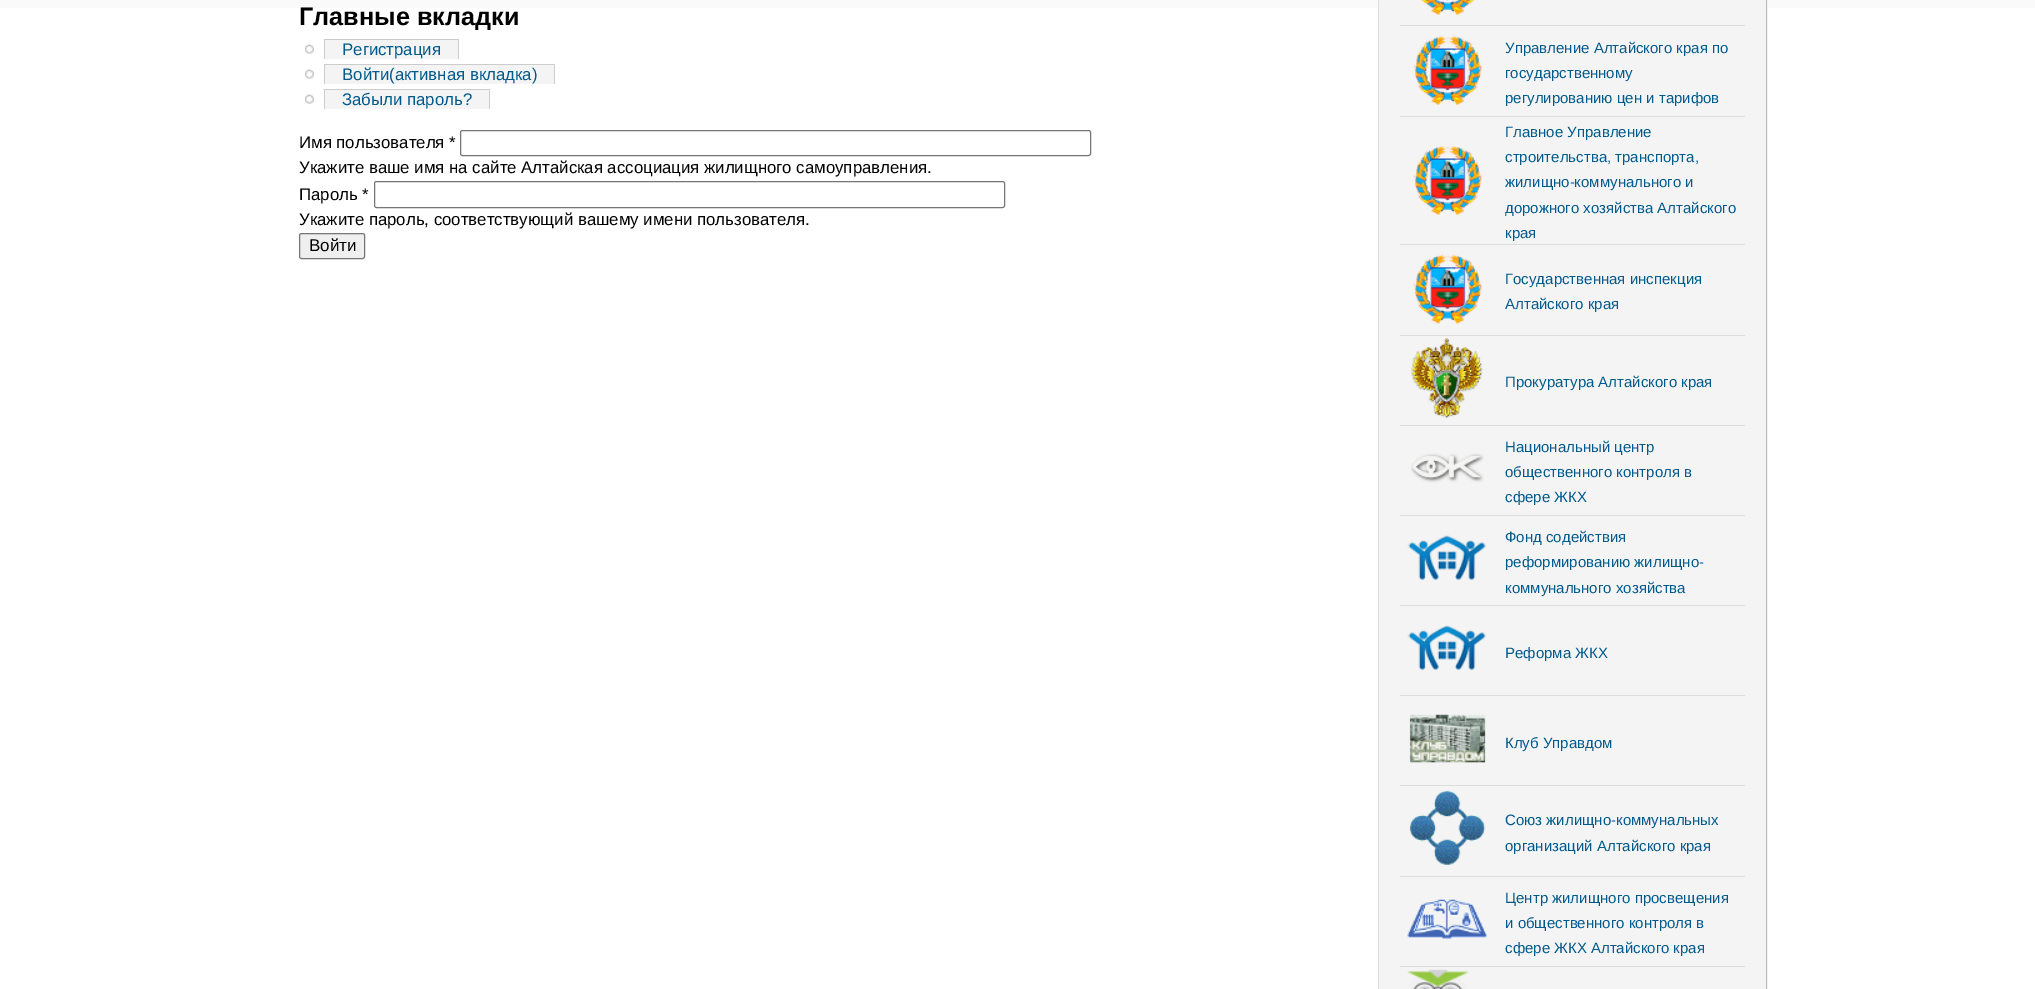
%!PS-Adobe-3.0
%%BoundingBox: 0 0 2035 989
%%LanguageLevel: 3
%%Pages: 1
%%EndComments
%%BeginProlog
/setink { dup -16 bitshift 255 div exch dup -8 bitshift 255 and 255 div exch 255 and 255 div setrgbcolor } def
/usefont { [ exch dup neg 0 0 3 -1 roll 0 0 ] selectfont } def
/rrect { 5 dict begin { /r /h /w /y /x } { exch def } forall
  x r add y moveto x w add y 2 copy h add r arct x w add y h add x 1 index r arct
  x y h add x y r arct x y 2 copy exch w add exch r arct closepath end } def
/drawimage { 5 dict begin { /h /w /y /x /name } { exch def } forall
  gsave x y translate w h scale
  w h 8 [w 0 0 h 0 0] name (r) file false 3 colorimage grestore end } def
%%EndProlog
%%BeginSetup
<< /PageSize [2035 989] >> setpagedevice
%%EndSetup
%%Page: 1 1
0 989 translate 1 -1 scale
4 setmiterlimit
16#FFFFFF setink
0 0 2035 989 rectfill
16#FAFAFA setink
0 0 2035 8 rectfill
/LiberationSans-Bold 25.25 usefont
16#000000 setink
299 25 moveto (Главные вкладки) show
(img1.raw) 305 44 9 10 drawimage
16#F4F4F4 setink
325 40 133 19 rectfill
/LiberationSans-Regular 16.8 usefont
16#005A8C setink
342 55 moveto (Регистрация) show
[
    [324 39 135 1 16#CCCCCC]
    [458 39 1 20 16#CCCCCC]
    [324 39 1 20 16#CCCCCC]
] { aload pop setink rectfill } forall
(img1.raw) 305 69 9 10 drawimage
16#F4F4F4 setink
325 65 229 19 rectfill
16#005A8C setink
342 80 moveto (Войти\(активная вкладка\)) show
[
    [324 64 231 1 16#CCCCCC]
    [324 64 1 20 16#CCCCCC]
    [554 64 1 20 16#CCCCCC]
] { aload pop setink rectfill } forall
(img1.raw) 305 94 9 10 drawimage
16#F4F4F4 setink
325 90 164 19 rectfill
16#005A8C setink
342 105 moveto (Забыли пароль?) show
[
    [324 89 166 1 16#CCCCCC]
    [489 89 1 20 16#CCCCCC]
    [324 89 1 20 16#CCCCCC]
] { aload pop setink rectfill } forall
16#000000 setink
299 148 moveto (Имя пользователя *) show
16#767676 setink
460.5 130.5 630 25 2 rrect stroke
16#000000 setink
299 173 moveto (Укажите ваше имя на сайте Алтайская ассоциация жилищного самоуправления.) show
299 200 moveto (Пароль *) show
16#767676 setink
374.5 181.5 630 26 2 rrect stroke
16#000000 setink
299 225 moveto (Укажите пароль, соответствующий вашему имени пользователя.) show
16#EFEFEF setink
299.5 233.5 65 25 2 rrect gsave fill grestore
16#767676 setink
stroke
/LiberationSans-Regular 17 usefont
16#000000 setink
309 251 moveto (Войти) show
[
    [1379 0 389 989 16#F4F4F4]
    [1766 0 1 989 16#BBBBBB]
    [1378 0 1 989 16#DDDDDD]
    [1400 25 345 1 16#DDDDDD]
] { aload pop setink rectfill } forall
(img2.raw) 1421 0 53 15 drawimage
1400 116 345 1 rectfill
(img3.raw) 1413 34 69 71 drawimage
/LiberationSans-Regular 15 usefont
16#005A8C setink
[
    [(Управление Алтайского края по) 1505 53]
    [(государственному) 1505 78]
    [(регулированию цен и тарифов) 1505 103]
] { aload pop moveto show } forall
16#DDDDDD setink
1400 244 345 1 rectfill
(img3.raw) 1413 144 69 71 drawimage
16#005A8C setink
[
    [(Главное Управление) 1505 137]
    [(строительства, транспорта,) 1505 162]
    [(жилищно-коммунального и) 1505 187]
    [(дорожного хозяйства Алтайского) 1505 213]
    [(края) 1505 238]
] { aload pop moveto show } forall
16#DDDDDD setink
1400 335 345 1 rectfill
(img4.raw) 1413 253 69 71 drawimage
16#005A8C setink
1505 284 moveto (Государственная инспекция) show
1505 309 moveto (Алтайского края) show
16#DDDDDD setink
1400 425 345 1 rectfill
(img5.raw) 1411 338 72 81 drawimage
16#005A8C setink
1505 387 moveto (Прокуратура Алтайского края) show
16#DDDDDD setink
1400 515 345 1 rectfill
(img6.raw) 1411 453 73 30 drawimage
16#005A8C setink
[
    [(Национальный центр) 1505 452]
    [(общественного контроля в) 1505 477]
    [(сфере ЖКХ) 1505 502]
] { aload pop moveto show } forall
16#DDDDDD setink
1400 605 345 1 rectfill
(img7.raw) 1407 535 80 45 drawimage
16#005A8C setink
[
    [(Фонд содействия) 1505 542]
    [(реформированию жилищно-) 1505 567]
    [(коммунального хозяйства) 1505 593]
] { aload pop moveto show } forall
16#DDDDDD setink
1400 695 345 1 rectfill
(img7.raw) 1407 625 80 45 drawimage
16#005A8C setink
1505 658 moveto (Реформа ЖКХ) show
16#DDDDDD setink
1400 785 345 1 rectfill
(img8.raw) 1409 714 77 49 drawimage
16#005A8C setink
1505 748 moveto (Клуб Управдом) show
16#DDDDDD setink
1400 876 345 1 rectfill
(img9.raw) 1409 790 77 75 drawimage
16#005A8C setink
1505 825 moveto (Союз жилищно-коммунальных) show
1505 851 moveto (организаций Алтайского края) show
16#DDDDDD setink
1400 966 345 1 rectfill
(img10.raw) 1407 898 80 41 drawimage
16#005A8C setink
[
    [(Центр жилищного просвещения) 1505 903]
    [(и общественного контроля в) 1505 928]
    [(сфере ЖКХ Алтайского края) 1505 953]
] { aload pop moveto show } forall
(img11.raw) 1407 969 62 20 drawimage
showpage
%%EOF
